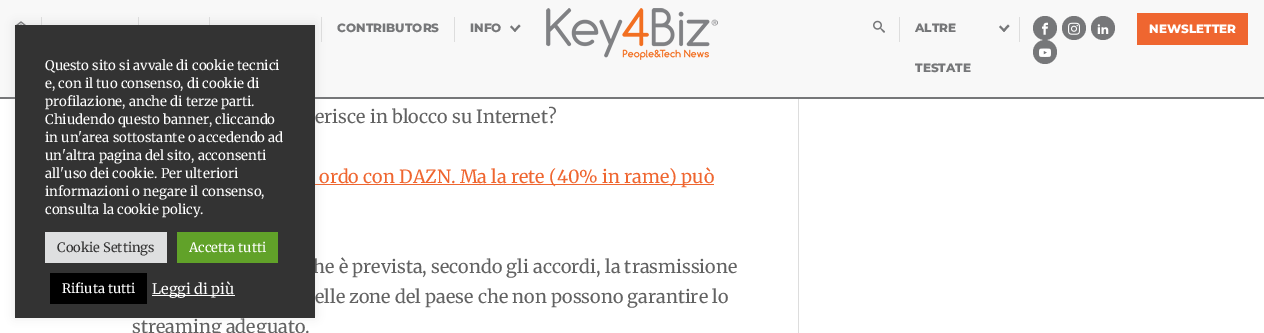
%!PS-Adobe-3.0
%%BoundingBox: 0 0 1264 333
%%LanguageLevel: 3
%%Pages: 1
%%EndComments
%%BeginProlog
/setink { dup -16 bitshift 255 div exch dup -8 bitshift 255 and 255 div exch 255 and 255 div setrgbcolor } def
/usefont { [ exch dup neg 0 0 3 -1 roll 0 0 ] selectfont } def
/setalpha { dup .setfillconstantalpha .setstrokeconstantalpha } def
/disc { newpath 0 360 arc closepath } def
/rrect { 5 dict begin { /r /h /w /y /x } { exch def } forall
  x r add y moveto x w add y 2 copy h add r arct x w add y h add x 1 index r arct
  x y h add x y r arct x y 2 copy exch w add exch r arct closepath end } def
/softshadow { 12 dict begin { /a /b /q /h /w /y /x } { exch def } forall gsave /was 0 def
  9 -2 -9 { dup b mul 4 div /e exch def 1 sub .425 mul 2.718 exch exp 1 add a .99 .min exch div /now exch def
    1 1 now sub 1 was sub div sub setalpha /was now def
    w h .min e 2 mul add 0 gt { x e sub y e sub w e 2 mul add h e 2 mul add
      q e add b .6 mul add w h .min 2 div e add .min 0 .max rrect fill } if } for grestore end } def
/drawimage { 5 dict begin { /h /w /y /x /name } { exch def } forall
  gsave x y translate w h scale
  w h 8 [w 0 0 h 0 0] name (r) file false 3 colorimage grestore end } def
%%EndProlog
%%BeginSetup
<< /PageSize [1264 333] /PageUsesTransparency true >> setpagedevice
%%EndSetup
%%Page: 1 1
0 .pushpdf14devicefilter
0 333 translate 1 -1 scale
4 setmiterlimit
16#FFFFFF setink
0 0 1264 333 rectfill
16#F8F8F8 setink
0 0 1264 97 rectfill
16#767779 setink
0 97 1264 2 rectfill
(img1.raw) 16 21 10 4 drawimage
[
    [41 17 1 8 16#DDDDDD]
    [138 17 1 8 16#DDDDDD]
    [209 17 1 8 16#DDDDDD]
    [321 17 1 25 16#DDDDDD]
] { aload pop setink rectfill } forall
/Montserrat-ExtraBold 12 usefont
16#767779 setink
337 32 moveto (CONTRIBUTORS) show
16#DDDDDD setink
454 17 1 25 rectfill
16#767779 setink
470 32 moveto (INFO) show
520.5 26 moveto 515 32 lineto 513.5 30.5 lineto 519 24.5 lineto closepath fill
516 30.5 moveto 515 32 lineto 510 27 lineto 511.5 25.5 lineto closepath fill
(img2.raw) 546 8 172 52 drawimage
(img3.raw) 873 20 12 13 drawimage
16#DDDDDD setink
899 17 1 25 rectfill
16#767779 setink
915 32 moveto (ALTRE) show
1009.5 26 moveto 1004 32 lineto 1002.5 30.5 lineto 1008 24.5 lineto closepath fill
1005.5 30.5 moveto 1004 32 lineto 999 27 lineto 1000.5 25.5 lineto closepath fill
16#DDDDDD setink
1019 17 1 25 rectfill
16#767779 setink
915 72 moveto (TESTATE) show
1045 28 12 disc fill
(img4.raw) 1042 22 6 13 drawimage
1074 28 12 disc fill
(img5.raw) 1068 22 12 13 drawimage
1103 28 12 disc fill
(img6.raw) 1097 24 12 10 drawimage
1045 52 12 disc fill
(img7.raw) 1039 48 12 9 drawimage
16#EF6630 setink
1137 13 111 32 rectfill
16#FFFFFF setink
1149 33 moveto (NEWSLETTER) show
16#EF6630 setink
315 184 399 1 rectfill
16#ACABAB setink
15 24 300 293 0 5 0.3 softshadow
/Merriweather-Regular 18 usefont
16#626262 setink
313 273 moveto (he è prevista, secondo gli accordi, la trasmissione) show
16#333333 setink
15 25 300 293 rectfill
/Merriweather-Regular 13.25 usefont
16#FFFFFF setink
[
    [(Questo sito si avvale di cookie tecnici) 45 70]
    [(e, con il tuo consenso, di cookie di) 45 88]
    [(profilazione, anche di terze parti.) 45 106]
    [(Chiudendo questo banner, cliccando) 45 124]
    [(in un'area sottostante o accedendo ad) 45 142]
    [(un'altra pagina del sito, acconsenti) 45 160]
    [(all'uso dei cookie. Per ulteriori) 45 178]
    [(informazioni o negare il consenso,) 45 196]
    [(consulta la cookie policy.) 45 214]
] { aload pop moveto show } forall
16#DEDFE0 setink
45 232 122 31 rectfill
/Merriweather-Regular 13 usefont
16#333333 setink
57 252 moveto (Cookie Settings) show
16#61A229 setink
177 232 101 31 rectfill
16#FFFFFF setink
189 252 moveto (Accetta tutti) show
16#000000 setink
50 273 97 31 rectfill
16#FFFFFF setink
62 293 moveto (Rifiuta tutti) show
152 295 83 1 rectfill
/Merriweather-Regular 14.5 usefont
152 294 moveto (Leggi di più) show
16#DDDDDD setink
798 99 1 234 rectfill
/Merriweather-Regular 18 usefont
16#626262 setink
315 123 moveto (erisce in blocco su Internet?) show
16#EF6630 setink
319 183 moveto (ordo con DAZN. Ma la rete \(40% in rame\) può) show
16#626262 setink
315 303 moveto (elle zone del paese che non possono garantire lo) show
132 333 moveto (streaming adeguato.) show
.poppdf14devicefilter showpage
%%EOF
